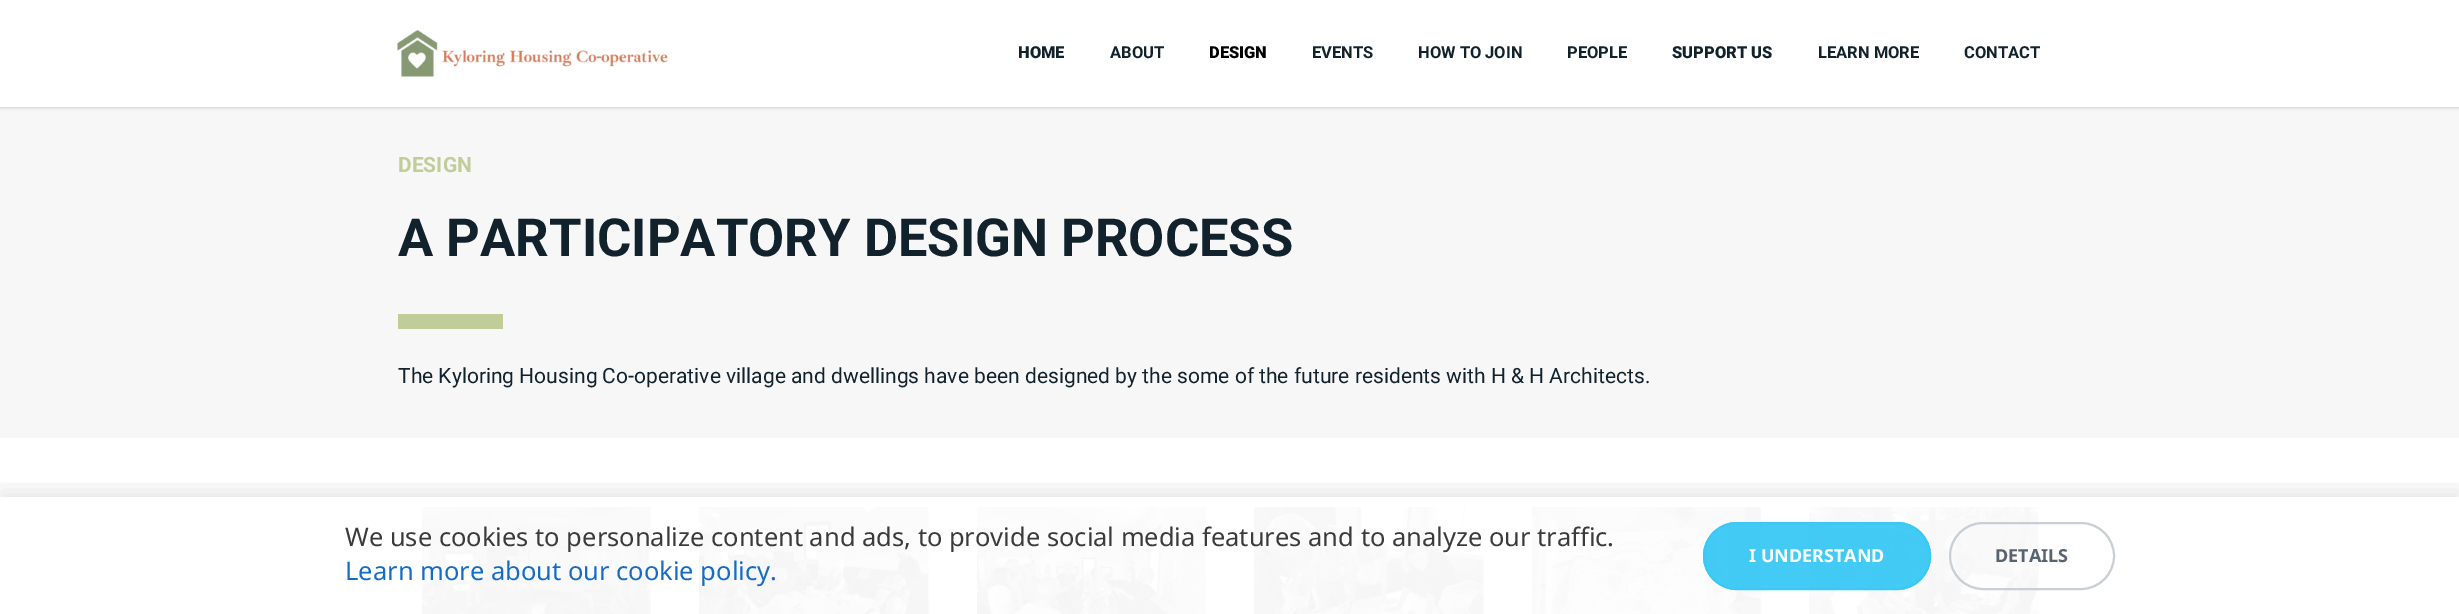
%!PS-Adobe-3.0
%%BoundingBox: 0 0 2459 614
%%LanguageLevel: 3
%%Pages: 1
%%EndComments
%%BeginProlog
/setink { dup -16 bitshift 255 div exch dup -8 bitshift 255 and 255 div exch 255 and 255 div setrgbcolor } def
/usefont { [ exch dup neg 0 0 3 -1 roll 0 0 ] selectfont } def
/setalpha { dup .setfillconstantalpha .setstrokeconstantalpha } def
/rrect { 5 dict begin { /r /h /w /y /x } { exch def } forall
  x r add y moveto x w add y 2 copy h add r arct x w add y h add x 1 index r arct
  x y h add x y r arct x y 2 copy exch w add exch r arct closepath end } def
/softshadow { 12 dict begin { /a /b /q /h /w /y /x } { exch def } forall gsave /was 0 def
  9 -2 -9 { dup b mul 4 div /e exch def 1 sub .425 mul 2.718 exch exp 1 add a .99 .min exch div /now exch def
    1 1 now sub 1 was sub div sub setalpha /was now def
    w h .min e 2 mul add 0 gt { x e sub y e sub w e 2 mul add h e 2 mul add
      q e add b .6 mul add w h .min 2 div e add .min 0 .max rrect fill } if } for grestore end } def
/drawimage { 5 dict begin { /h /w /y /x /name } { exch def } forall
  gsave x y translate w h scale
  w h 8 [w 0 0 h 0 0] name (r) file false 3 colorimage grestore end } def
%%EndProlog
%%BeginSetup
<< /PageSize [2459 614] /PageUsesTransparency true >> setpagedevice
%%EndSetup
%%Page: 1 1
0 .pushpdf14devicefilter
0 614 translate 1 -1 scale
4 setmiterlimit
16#FFFFFF setink
0 0 2459 614 rectfill
16#F7F7F7 setink
0 107 2459 331 rectfill
gsave
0 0 moveto 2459 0 lineto 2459 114 lineto 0 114 lineto closepath 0 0 moveto 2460 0 lineto 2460 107 lineto 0 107 lineto closepath eoclip newpath
16#B5B5B5 setink
0 0 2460 107 0 2 1 softshadow
grestore
(img1.raw) 397 30 271 47 drawimage
/Roboto-Black 16.5 usefont
16#12222D setink
1018 58 moveto (HOME) show
/Roboto-Bold 16.5 usefont
1110 58 moveto (ABOUT) show
/Roboto-Black 16.5 usefont
16#000000 setink
1209 58 moveto (DESIGN) show
/Roboto-Bold 16.5 usefont
16#12222D setink
[
    [(EVENTS) 1312 58]
    [(HOW TO JOIN) 1418 58]
    [(PEOPLE) 1567 58]
] { aload pop moveto show } forall
/Roboto-Black 16.5 usefont
1672 58 moveto (SUPPORT US) show
/Roboto-Bold 16.5 usefont
1818 58 moveto (LEARN MORE) show
1964 58 moveto (CONTACT) show
/Roboto-Bold 21 usefont
16#C0CD98 setink
398 172 moveto (DESIGN) show
/Roboto-Bold 52.5 usefont
16#12222D setink
398 256 moveto (A PARTICIPATORY DESIGN PROCESS) show
16#C0CD98 setink
398 314 105 15 rectfill
/Roboto-Regular 21 usefont
16#12222D setink
398 383 moveto (The Kyloring Housing Co-operative village and dwellings have been designed by the some of the future residents with H & H Architects.) show
(img2.raw) 422 507 229 107 drawimage
(img3.raw) 699 507 230 107 drawimage
(img4.raw) 977 507 229 107 drawimage
(img5.raw) 1254 507 230 107 drawimage
(img6.raw) 1532 507 229 107 drawimage
(img7.raw) 1809 507 230 107 drawimage
gsave
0 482 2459 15 rectclip
16#0A0A0A setink
0 491 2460 118 0 10.5 0.1 softshadow
grestore
/NotoSans-Regular 25.5 usefont
16#3B3B3B setink
345 546 moveto (We use cookies to personalize content and ads, to provide social media features and to analyze our traffic.) show
16#156CC5 setink
345 580 moveto (Learn more about our cookie policy.) show
0.96 setalpha
16#3BC8F5 setink
1703 522 228 68 34 rrect fill
2 setlinewidth
1704 523 226 66 33 rrect stroke
/NotoSans-Bold 18 usefont
1 setalpha
16#F7FDFF setink
1749 562 moveto (I UNDERSTAND) show
0.96 setalpha
16#C6CDD3 setink
1950 523 164 66 33 rrect stroke
1 setalpha
16#59626F setink
1995 562 moveto (DETAILS) show
.poppdf14devicefilter showpage
%%EOF
